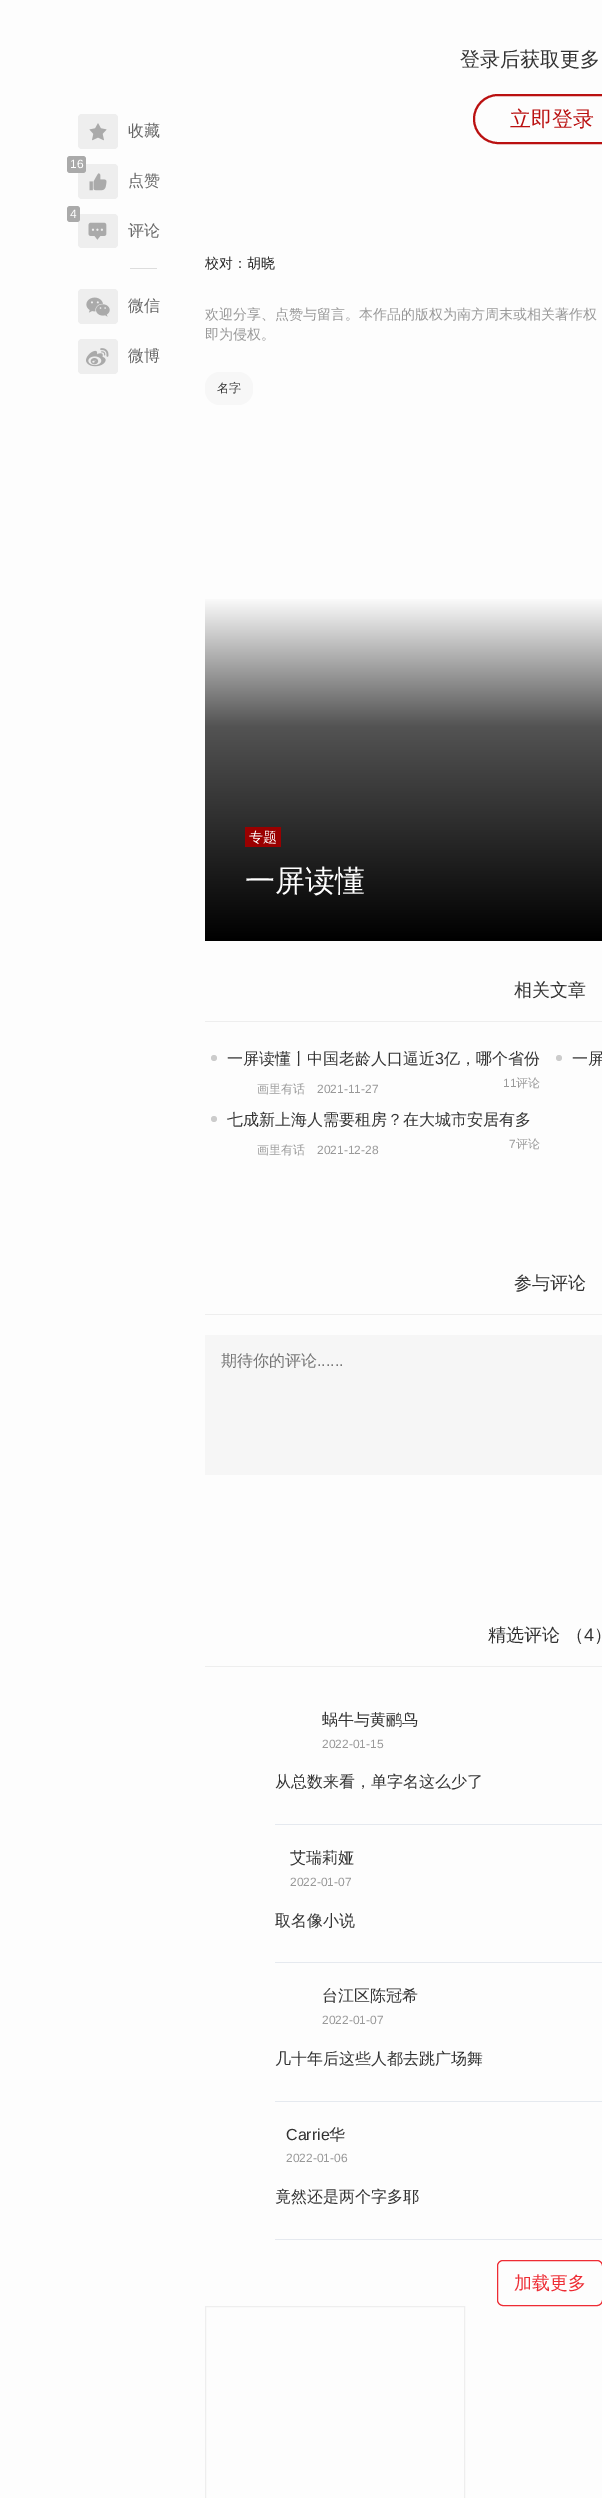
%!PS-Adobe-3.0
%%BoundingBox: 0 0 602 2498
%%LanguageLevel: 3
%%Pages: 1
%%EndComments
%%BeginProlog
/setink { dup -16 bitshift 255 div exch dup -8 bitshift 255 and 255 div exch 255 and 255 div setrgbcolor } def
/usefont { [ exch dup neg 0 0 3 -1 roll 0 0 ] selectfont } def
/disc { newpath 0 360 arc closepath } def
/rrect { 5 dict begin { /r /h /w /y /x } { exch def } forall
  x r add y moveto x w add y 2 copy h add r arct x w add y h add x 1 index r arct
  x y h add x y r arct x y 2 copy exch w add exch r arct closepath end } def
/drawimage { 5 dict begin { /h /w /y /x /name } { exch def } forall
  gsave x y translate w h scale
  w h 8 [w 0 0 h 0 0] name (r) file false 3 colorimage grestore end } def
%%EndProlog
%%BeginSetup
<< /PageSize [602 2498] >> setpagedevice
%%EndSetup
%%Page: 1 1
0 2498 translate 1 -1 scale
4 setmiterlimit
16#FDFDFD setink
0 0 602 2498 rectfill
16#EEEEEE setink
78 114 40 35 4 rrect fill
(img1.raw) 89 123 18 18 drawimage
/WenQuanYiZenHei-Medium 16 usefont
16#666666 setink
128 136 moveto (收藏) show
16#EEEEEE setink
78 164 40 35 4 rrect fill
16#AAAAAA setink
67 156 19 17 3 rrect fill
/LiberationSans-Regular 12 usefont
16#FFFFFF setink
70 168 moveto (16) show
(img2.raw) 89 173 18 18 drawimage
/WenQuanYiZenHei-Medium 16 usefont
16#666666 setink
128 186 moveto (点赞) show
16#EEEEEE setink
78 214 40 34 4 rrect fill
16#AAAAAA setink
67 206 13 16 3 rrect fill
/LiberationSans-Regular 12 usefont
16#FFFFFF setink
70 218 moveto (4) show
(img3.raw) 88 222 19 18 drawimage
/WenQuanYiZenHei-Medium 16 usefont
16#666666 setink
128 236 moveto (评论) show
16#DDDDDD setink
130 268 27 1 rectfill
16#EEEEEE setink
78 289 40 35 4 rrect fill
(img4.raw) 86 297 24 20 drawimage
16#666666 setink
128 311 moveto (微信) show
16#EEEEEE setink
78 339 40 35 4 rrect fill
(img5.raw) 86 348 23 19 drawimage
16#666666 setink
128 361 moveto (微博) show
/WenQuanYiZenHei-Medium 20 usefont
16#333333 setink
460 66 moveto (登录后获取更多) show
16#BA1010 setink
2 setlinewidth
474 95 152 48 24 rrect stroke
/WenQuanYiZenHei-Medium 21 usefont
510 126 moveto (立即登录) show
/WenQuanYiZenHei-Medium 14 usefont
16#222222 setink
205 268 moveto (校对：胡晓) show
16#999999 setink
205 319 moveto (欢迎分享、点赞与留言。本作品的版权为南方周末或相关著作权) show
205 339 moveto (即为侵权。) show
16#F7F7F7 setink
205 372 48 33 15 rrect fill
/WenQuanYiZenHei-Medium 12 usefont
16#333333 setink
217 392 moveto (名字) show
gsave 205 599 moveto 602 599 lineto 602 941 lineto 205 941 lineto closepath clip newpath
<< /ShadingType 2 /ColorSpace /DeviceRGB /Coords [550 495 550 941] /Extend [true true] /Function << /FunctionType 3 /Domain [0 1] /Functions [<< /FunctionType 2 /Domain [0 1] /C0 [0.988 0.988 0.988] /C1 [0.988 0.988 0.988] /N 1 >> << /FunctionType 2 /Domain [0 1] /C0 [0.988 0.988 0.988] /C1 [0.325 0.325 0.325] /N 1 >> << /FunctionType 2 /Domain [0 1] /C0 [0.325 0.325 0.325] /C1 [0 0 0] /N 1 >>] /Bounds [0.23 0.52] /Encode [0 1 0 1 0 1] >> >> shfill grestore
16#9A0000 setink
245 827 36 20 rectfill
/WenQuanYiZenHei-Medium 14 usefont
16#FFFFFF setink
249 842 moveto (专题) show
/WenQuanYiZenHei-Medium 30 usefont
245 891 moveto (一屏读懂) show
16#EEEEEE setink
205 1021 397 1 rectfill
/WenQuanYiZenHei-Medium 18 usefont
16#333333 setink
514 996 moveto (相关文章) show
16#CCCCCC setink
214 1058 3 disc fill
/WenQuanYiZenHei-Medium 16 usefont
16#333333 setink
227 1064 moveto (一屏读懂丨中国老龄人口逼近) show
/LiberationSans-Regular 16 usefont
435 1064 moveto (3) show
/WenQuanYiZenHei-Medium 16 usefont
444 1064 moveto (亿，哪个省份) show
/WenQuanYiZenHei-Medium 12 usefont
16#999999 setink
257 1093 moveto (画里有话) show
/LiberationSans-Regular 12 usefont
317 1093 moveto (2021-11-27) show
503 1087 moveto (11) show
/WenQuanYiZenHei-Medium 12 usefont
516 1087 moveto (评论) show
16#CCCCCC setink
559 1058 3 disc fill
/WenQuanYiZenHei-Medium 16 usefont
16#333333 setink
572 1064 moveto (一屏) show
16#CCCCCC setink
214 1119 3 disc fill
16#333333 setink
227 1125 moveto (七成新上海人需要租房？在大城市安居有多) show
/WenQuanYiZenHei-Medium 12 usefont
16#999999 setink
257 1154 moveto (画里有话) show
/LiberationSans-Regular 12 usefont
317 1154 moveto (2021-12-28) show
509 1148 moveto (7) show
/WenQuanYiZenHei-Medium 12 usefont
516 1148 moveto (评论) show
/WenQuanYiZenHei-Medium 18 usefont
16#333333 setink
514 1289 moveto (参与评论) show
16#EEEEEE setink
205 1314 397 1 rectfill
16#F6F6F6 setink
205 1335 397 140 rectfill
/WenQuanYiZenHei-Medium 16 usefont
16#757575 setink
221 1366 moveto (期待你的评论) show
/LiberationSans-Regular 16 usefont
317 1366 moveto (......) show
/WenQuanYiZenHei-Medium 18 usefont
16#333333 setink
488 1641 moveto (精选评论) show
566 1641 moveto (（) show
/LiberationSans-Regular 18 usefont
584 1641 moveto (4) show
/WenQuanYiZenHei-Medium 18 usefont
594 1641 moveto (）) show
16#EEEEEE setink
205 1666 397 1 rectfill
16#E5E9EF setink
275 1824 327 1 rectfill
/WenQuanYiZenHei-Medium 16 usefont
16#333333 setink
322 1725 moveto (蜗牛与黄鹂鸟) show
/LiberationSans-Regular 12 usefont
16#999999 setink
322 1748 moveto (2022-01-15) show
/WenQuanYiZenHei-Medium 16 usefont
16#333333 setink
275 1787 moveto (从总数来看，单字名这么少了) show
16#E5E9EF setink
275 1962 327 1 rectfill
16#333333 setink
290 1863 moveto (艾瑞莉娅) show
/LiberationSans-Regular 12 usefont
16#999999 setink
290 1886 moveto (2022-01-07) show
/WenQuanYiZenHei-Medium 16 usefont
16#333333 setink
275 1926 moveto (取名像小说) show
16#E5E9EF setink
275 2101 327 1 rectfill
16#333333 setink
322 2001 moveto (台江区陈冠希) show
/LiberationSans-Regular 12 usefont
16#999999 setink
322 2024 moveto (2022-01-07) show
/WenQuanYiZenHei-Medium 16 usefont
16#333333 setink
275 2064 moveto (几十年后这些人都去跳广场舞) show
16#E5E9EF setink
275 2239 327 1 rectfill
/LiberationSans-Regular 16 usefont
16#333333 setink
286 2140 moveto (Carrie) show
/WenQuanYiZenHei-Medium 16 usefont
329 2140 moveto (华) show
/LiberationSans-Regular 12 usefont
16#999999 setink
286 2162 moveto (2022-01-06) show
/WenQuanYiZenHei-Medium 16 usefont
16#333333 setink
275 2202 moveto (竟然还是两个字多耶) show
16#EE2C34 setink
1 setlinewidth
497.5 2260.5 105 45 5.5 rrect stroke
/WenQuanYiZenHei-Medium 18 usefont
514 2289 moveto (加载更多) show
16#EEEEEE setink
205.5 2306.5 259 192 rectstroke
showpage
%%EOF
